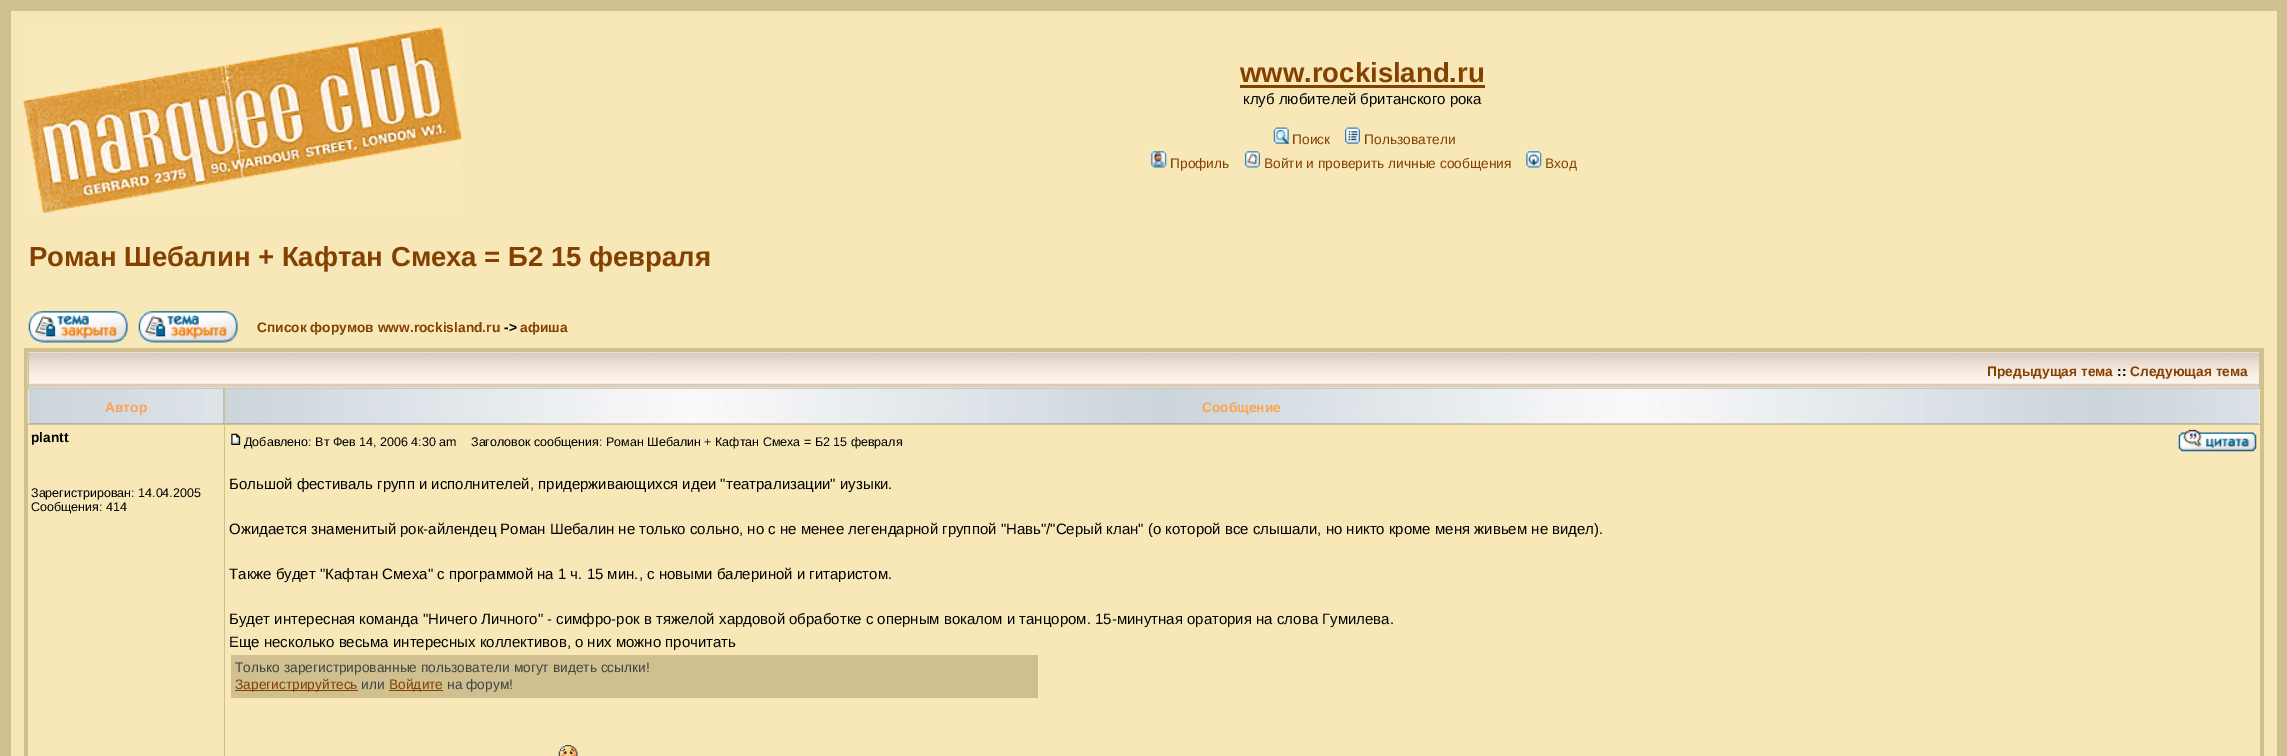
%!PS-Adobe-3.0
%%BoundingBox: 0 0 2287 756
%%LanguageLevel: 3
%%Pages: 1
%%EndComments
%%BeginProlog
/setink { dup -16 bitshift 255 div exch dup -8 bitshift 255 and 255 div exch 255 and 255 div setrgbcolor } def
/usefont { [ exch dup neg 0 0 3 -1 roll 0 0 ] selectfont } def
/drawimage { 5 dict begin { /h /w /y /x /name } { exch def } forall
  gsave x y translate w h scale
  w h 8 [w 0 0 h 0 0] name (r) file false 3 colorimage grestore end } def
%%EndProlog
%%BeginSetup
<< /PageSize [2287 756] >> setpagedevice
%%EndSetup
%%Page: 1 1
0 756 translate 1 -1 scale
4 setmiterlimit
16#D0C090 setink
0 0 2287 756 rectfill
16#F8E8B8 setink
11 11 2266 745 rectfill
(img1.raw) 23 25 439 188 drawimage
/LiberationSans-Bold 27.5 usefont
16#844000 setink
1240 82 moveto (www.rockisland.ru) show
1240 85 245 3 rectfill
/LiberationSans-Regular 15 usefont
16#000000 setink
1243 104 moveto (клуб любителей британского рока) show
(img2.raw) 1273 127 16 17 drawimage
/LiberationSans-Regular 13.75 usefont
16#844000 setink
1292 144 moveto (Поиск) show
(img3.raw) 1345 127 15 17 drawimage
1364 144 moveto (Пользователи) show
(img4.raw) 1151 151 16 17 drawimage
1170 168 moveto (Профиль) show
(img5.raw) 1245 151 15 17 drawimage
1264 168 moveto (Войти и проверить личные сообщения) show
(img6.raw) 1526 151 16 17 drawimage
1545 168 moveto (Вход) show
/LiberationSans-Bold 27.5 usefont
29 266 moveto (Роман Шебалин + Кафтан Смеха = Б2 15 февраля) show
(img7.raw) 28 311 100 32 drawimage
(img8.raw) 138 311 100 32 drawimage
/LiberationSans-Bold 13.75 usefont
257 332 moveto (Список форумов www.rockisland.ru) show
16#000000 setink
504 332 moveto (->) show
16#844000 setink
520 332 moveto (афиша) show
16#D0C090 setink
24 348 2240 408 rectfill
16#F8E8B8 setink
29 387 2230 1 rectfill
(img9.raw) 27 351 2232 37 drawimage
16#D0C090 setink
28 351 2232 1 rectfill
28 351 1 37 rectfill
16#844000 setink
1987 376 moveto (Предыдущая тема) show
16#000000 setink
2117 376 moveto (::) show
16#844000 setink
2130 376 moveto (Следующая тема) show
29 389 195 35 rectfill
(img10.raw) 27 388 197 36 drawimage
16#F8E8B8 setink
28 389 1 35 rectfill
16#FFA34F setink
105 412 moveto (Автор) show
(img11.raw) 225 388 2035 36 drawimage
16#F8E8B8 setink
2259 389 1 35 rectfill
16#FFA34F setink
1202 412 moveto (Сообщение) show
16#F8E8B8 setink
28 425 196 331 rectfill
16#000000 setink
31 442 moveto (plantt) show
/LiberationSans-Regular 12.5 usefont
31 497 moveto (Зарегистрирован: 14.04.2005) show
31 511 moveto (Сообщения: 414) show
16#F8E8B8 setink
225 425 2035 331 rectfill
(img12.raw) 231 433 10 12 drawimage
16#000000 setink
244 446 moveto (Добавлено: Вт Фев 14, 2006 4:30 am) show
471 446 moveto (Заголовок сообщения: Роман Шебалин + Кафтан Смеха = Б2 15 февраля) show
(img13.raw) 2178 429 79 23 drawimage
/LiberationSans-Regular 15 usefont
[
    [(Большой фестиваль групп и исполнителей, придерживающихся идеи "театрализации" иузыки.) 229 489]
    [(Ожидается знаменитый рок-айлендец Роман Шебалин не только сольно, но с не менее легендарной группой "Навь"/"Серый клан" \(о которой все слышали, но никто кроме меня живьем не видел\).) 229 534]
    [(Также будет "Кафтан Смеха" с программой на 1 ч. 15 мин., с новыми балериной и гитаристом.) 229 579]
    [(Будет интересная команда "Ничего Личного" - симфро-рок в тяжелой хардовой обработке с оперным вокалом и танцором. 15-минутная оратория на слова Гумилева.) 229 624]
    [(Еще несколько весьма интересных коллективов, о них можно прочитать) 229 647]
] { aload pop moveto show } forall
16#D0C090 setink
231 655 807 43 rectfill
/LiberationSans-Regular 13.75 usefont
16#444444 setink
235 672 moveto (Только зарегистрированные пользователи могут видеть ссылки!) show
16#844000 setink
235 690 123 1 rectfill
235 689 moveto (Зарегистрируйтесь) show
16#444444 setink
361 689 moveto (или) show
16#844000 setink
389 690 54 1 rectfill
389 689 moveto (Войдите) show
16#444444 setink
447 689 moveto (на форум!) show
(img14.raw) 558 745 20 11 drawimage
showpage
%%EOF
